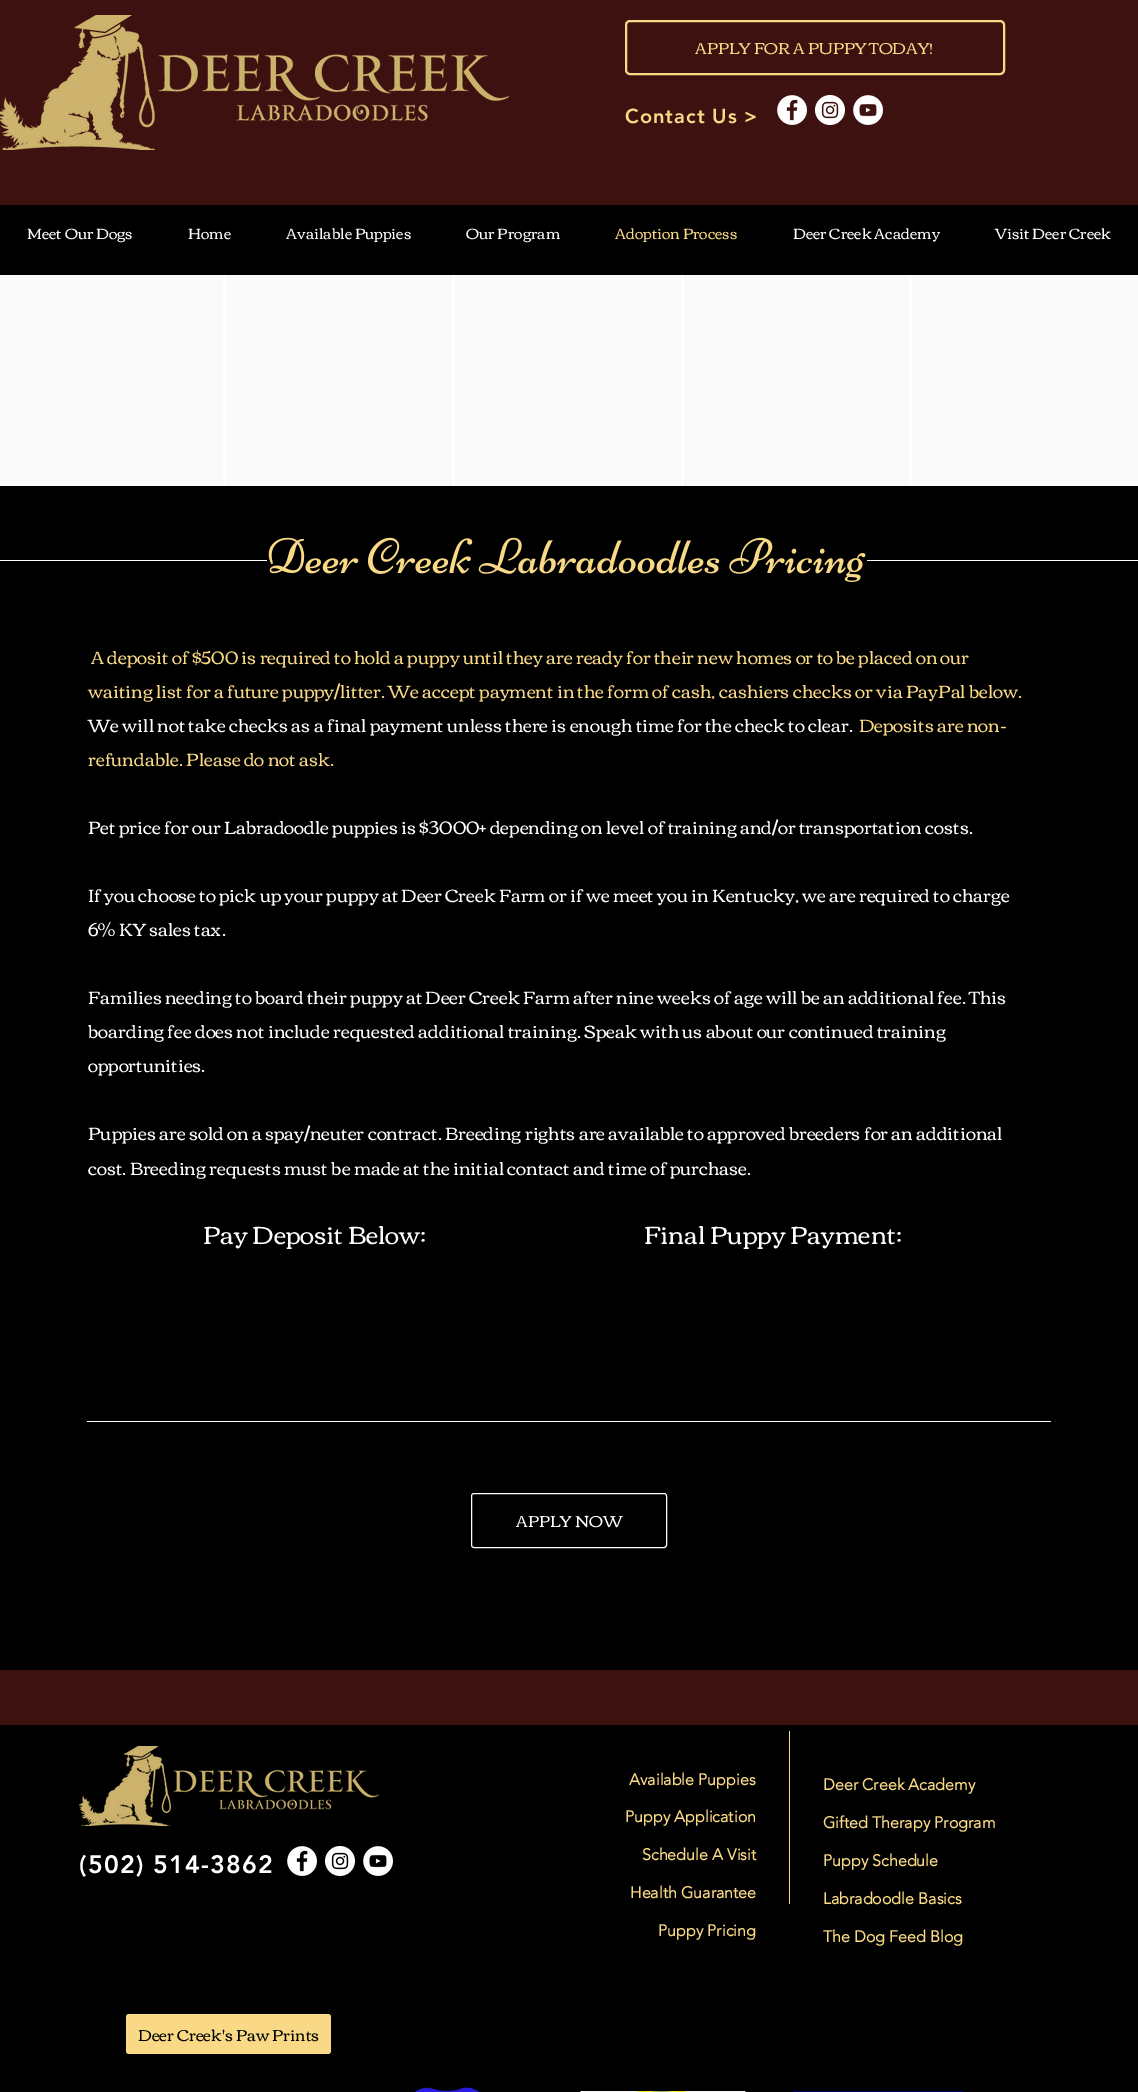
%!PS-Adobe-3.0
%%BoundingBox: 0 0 1138 2092
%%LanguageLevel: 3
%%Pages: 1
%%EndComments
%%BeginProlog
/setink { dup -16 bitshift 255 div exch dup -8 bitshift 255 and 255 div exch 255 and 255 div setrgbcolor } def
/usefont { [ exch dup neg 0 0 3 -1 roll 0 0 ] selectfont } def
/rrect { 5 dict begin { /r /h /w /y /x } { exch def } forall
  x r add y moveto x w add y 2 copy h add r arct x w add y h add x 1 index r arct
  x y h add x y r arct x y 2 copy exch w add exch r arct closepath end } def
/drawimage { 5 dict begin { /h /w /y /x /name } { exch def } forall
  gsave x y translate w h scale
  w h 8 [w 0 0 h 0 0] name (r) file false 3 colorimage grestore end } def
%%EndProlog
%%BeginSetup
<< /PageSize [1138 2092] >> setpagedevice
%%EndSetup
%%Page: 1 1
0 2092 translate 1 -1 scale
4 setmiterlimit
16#000000 setink
0 0 1138 2092 rectfill
16#3E1111 setink
0 0 1138 205 rectfill
(img1.raw) 0 15 510 135 drawimage
16#F9D985 setink
2 setlinewidth
626 21 378 53 4 rrect stroke
/Corben-Regular 16 usefont
695 54 moveto (APPLY FOR A PUPPY TODAY!) show
/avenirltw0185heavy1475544-Black 20 usefont
625 123 moveto 1 0 (Contact Us >) ashow
(img2.raw) 777 95 30 30 drawimage
(img3.raw) 815 95 30 30 drawimage
(img4.raw) 853 95 30 30 drawimage
/Corben-Regular 15 usefont
16#FFFFFF setink
[
    [(Meet Our Dogs) 27 239]
    [(Home) 188 239]
    [(Available Puppies) 286 239]
    [(Our Program) 466 239]
] { aload pop moveto show } forall
16#F9D985 setink
615 239 moveto (Adoption Process) show
16#FFFFFF setink
793 239 moveto (Deer Creek Academy) show
995 239 moveto (Visit Deer Creek) show
[
    [0 275 223 211 16#FAFAFA]
    [223 275 689 211 16#FFFFFF]
    [226 275 226 211 16#FAFAFA]
    [455 275 226 211 16#FAFAFA]
    [684 275 225 211 16#FAFAFA]
    [912 275 226 211 16#FAFAFA]
    [0 560 267 1 16#FFFFFF]
] { aload pop setink rectfill } forall
(img5.raw) 268 537 598 45 drawimage
867 560 271 1 rectfill
/Corben-Regular 18 usefont
16#F9D985 setink
91 664 moveto (A deposit of $500 is required to hold a puppy until they are ready for their new homes or to be placed on our) show
88 698 moveto (waiting list for a future puppy/litter. We accept payment in the form of cash, cashiers checks or via PayPal below.) show
16#FFFFFF setink
88 732 moveto (We will not take checks as a final payment unless there is enough time for the check to clear.) show
16#F9D985 setink
859 732 moveto (Deposits are non-) show
88 766 moveto (refundable. Please do not ask.) show
16#FFFFFF setink
[
    [(Pet price for our Labradoodle puppies is $3000+ depending on level of training and/or transportation costs.) 88 834]
    [(If you choose to pick up your puppy at Deer Creek Farm or if we meet you in Kentucky, we are required to charge) 88 902]
    [(6% KY sales tax.) 88 936]
    [(Families needing to board their puppy at Deer Creek Farm after nine weeks of age will be an additional fee. This) 88 1004]
    [(boarding fee does not include requested additional training. Speak with us about our continued training) 88 1038]
    [(opportunities.) 88 1072]
    [(Puppies are sold on a spay/neuter contract. Breeding rights are available to approved breeders for an additional) 88 1140]
    [(cost. Breeding requests must be made at the initial contact and time of purchase.) 88 1175]
] { aload pop moveto show } forall
/Corben-Regular 25 usefont
203 1244 moveto (Pay Deposit Below:) show
644 1244 moveto (Final Puppy Payment:) show
87 1421 964 1 rectfill
1 setlinewidth
471.5 1493.5 195 54 2.5 rrect stroke
/Corben-Regular 16 usefont
516 1527 moveto (APPLY NOW) show
16#3E1111 setink
0 1670 1138 55 rectfill
(img6.raw) 79 1746 300 80 drawimage
/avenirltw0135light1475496-Bold 16 usefont
16#F9D985 setink
[
    [(Available Puppies) 629 1785]
    [(Puppy Application) 625 1822]
    [(Schedule A Visit) 642 1860]
    [(Health Guarantee) 630 1898]
    [(Puppy Pricing) 658 1936]
] { aload pop moveto show } forall
789 1731 1 173 rectfill
[
    [(Deer Creek Academy) 823 1790]
    [(Gifted Therapy Program) 823 1828]
    [(Puppy Schedule) 823 1866]
    [(Labradoodle Basics) 823 1904]
    [(The Dog Feed Blog) 823 1942]
] { aload pop moveto show } forall
/avenirltw0185heavy1475544-Black 25 usefont
16#FFFFFF setink
79 1873 moveto 1.25 0 (\(502\) 514-3862) ashow
(img7.raw) 287 1846 30 30 drawimage
(img8.raw) 325 1846 30 30 drawimage
(img9.raw) 363 1846 30 30 drawimage
16#F9D985 setink
126 2014 205 40 3 rrect fill
/Corben-Regular 16 usefont
16#000000 setink
138 2041 moveto (Deer Creek's Paw Prints) show
(img10.raw) 415 2087 64 5 drawimage
(img11.raw) 578 2091 170 1 drawimage
16#000068 setink
793 2091 170 1 rectfill
showpage
%%EOF
